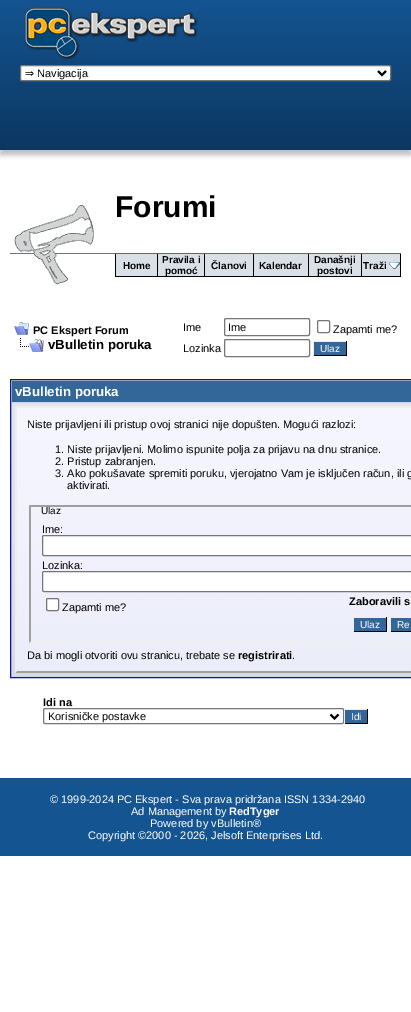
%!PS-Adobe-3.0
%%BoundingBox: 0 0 411 1012
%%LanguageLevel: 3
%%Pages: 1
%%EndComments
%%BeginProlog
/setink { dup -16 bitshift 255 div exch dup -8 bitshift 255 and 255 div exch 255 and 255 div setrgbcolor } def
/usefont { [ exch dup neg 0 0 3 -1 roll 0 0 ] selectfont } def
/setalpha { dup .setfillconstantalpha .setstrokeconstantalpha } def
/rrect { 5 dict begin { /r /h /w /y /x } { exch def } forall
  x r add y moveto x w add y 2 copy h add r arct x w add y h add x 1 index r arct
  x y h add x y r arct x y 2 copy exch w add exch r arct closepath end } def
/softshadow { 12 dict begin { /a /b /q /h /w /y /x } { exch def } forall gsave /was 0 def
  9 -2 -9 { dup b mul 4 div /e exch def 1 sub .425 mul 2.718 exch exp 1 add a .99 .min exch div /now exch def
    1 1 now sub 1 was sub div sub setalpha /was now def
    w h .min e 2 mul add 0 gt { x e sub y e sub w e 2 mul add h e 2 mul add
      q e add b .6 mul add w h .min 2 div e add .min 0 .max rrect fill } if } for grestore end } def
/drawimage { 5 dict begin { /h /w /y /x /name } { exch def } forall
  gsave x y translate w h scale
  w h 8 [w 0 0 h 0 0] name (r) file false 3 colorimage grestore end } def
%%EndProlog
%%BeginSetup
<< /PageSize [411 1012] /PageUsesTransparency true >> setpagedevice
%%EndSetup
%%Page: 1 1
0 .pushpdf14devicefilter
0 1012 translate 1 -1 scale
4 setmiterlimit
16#FFFFFF setink
0 0 411 1012 rectfill
16#000000 setink
0 5 411 150 0 2.5 0.25 softshadow
gsave 0 0 moveto 411 0 lineto 411 150 lineto 0 150 lineto closepath clip newpath
<< /ShadingType 2 /ColorSpace /DeviceRGB /Coords [206 0 206 150] /Extend [true true] /Function << /FunctionType 2 /Domain [0 1] /C0 [0.078 0.329 0.569] /C1 [0.047 0.216 0.376] /N 1 >> >> shfill grestore
(img1.raw) 24 7 174 53 drawimage
16#FFFFFF setink
20.5 65.5 370 15 1.5 rrect gsave fill grestore
16#767676 setink
stroke
16#000000 setink
2 setlinewidth
378 71 moveto 382 75 lineto 386 71 lineto stroke
/DejaVuSans-Regular 11 usefont
25 77 moveto (⇒) show
/LiberationSans-Regular 11 usefont
37 77 moveto (Navigacija) show
(img2.raw) 10 205 104 80 drawimage
/LiberationSans-Bold 30 usefont
115 217 moveto (Forumi) show
[
    [114 253 287 1 16#666666]
    [400 254 1 23 16#000000]
    [116 254 41 22 16#DAE0E8]
    [115 276 285 1 16#000000]
    [115 254 1 23 16#000000]
] { aload pop setink rectfill } forall
/LiberationSans-Bold 10 usefont
123 269 moveto (Home) show
16#DAE0E8 setink
158 254 46 22 rectfill
16#000000 setink
157 254 1 23 rectfill
162 263 moveto (Pravila i) show
165 274 moveto (pomoć) show
16#DAE0E8 setink
205 254 48 22 rectfill
16#000000 setink
204 254 1 23 rectfill
211 269 moveto (Članovi) show
16#DAE0E8 setink
254 254 54 22 rectfill
16#000000 setink
253 254 1 23 rectfill
259 269 moveto (Kalendar) show
16#DAE0E8 setink
309 254 52 22 rectfill
16#000000 setink
308 254 1 23 rectfill
314 263 moveto (Današnji) show
317 274 moveto (postovi) show
16#DAE0E8 setink
362 254 38 22 rectfill
16#000000 setink
361 254 1 23 rectfill
363 269 moveto (Traži) show
(img3.raw) 389 262 11 7 drawimage
(img4.raw) 14 322 15 13 drawimage
/LiberationSans-Bold 11 usefont
33 334 moveto (PC Ekspert Forum) show
(img5.raw) 20 338 24 14 drawimage
/LiberationSans-Bold 13.25 usefont
48 349 moveto (vBulletin poruka) show
/LiberationSans-Regular 11 usefont
183 331 moveto (Ime) show
16#767676 setink
1 setlinewidth
224.5 318.5 85 17 1.5 rrect stroke
16#000000 setink
228 331 moveto (Ime) show
16#767676 setink
317.5 320.5 12 12 1.5 rrect stroke
16#000000 setink
333 333 moveto (Zapamti me?) show
183 352 moveto (Lozinka) show
16#767676 setink
224.5 339.5 85 17 1.5 rrect stroke
[
    [314 342 32 13 16#336699]
    [313 341 34 1 16#EEEEEE]
    [346 341 1 15 16#000000]
    [313 355 34 1 16#000000]
    [313 341 1 15 16#EEEEEE]
] { aload pop setink rectfill } forall
/LiberationSans-Regular 10 usefont
16#FFFFFF setink
320 352 moveto (Ulaz) show
16#D1D1E1 setink
10.5 379.5 moveto 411.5 379.5 lineto 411.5 677.5 lineto 10.5 677.5 lineto closepath gsave fill grestore
16#0B198C setink
stroke
16#336699 setink
12 381 399 21 rectfill
/LiberationSans-Bold 13.25 usefont
16#FFFFFF setink
15 396 moveto (vBulletin poruka) show
(img6.raw) 12 403 399 273 drawimage
(img7.raw) 15 408 396 265 drawimage
16#EEEEEE setink
15 406 moveto 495 406 lineto 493 408 lineto 17 408 lineto closepath fill
16#9F9F9F setink
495 673 moveto 15 673 lineto 17 671 lineto 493 671 lineto closepath fill
16#EEEEEE setink
15 673 moveto 15 406 lineto 17 408 lineto 17 671 lineto closepath fill
/LiberationSans-Regular 11 usefont
16#000000 setink
[
    [(Niste prijavljeni ili pristup ovoj stranici nije dopušten. Mogući razlozi:) 27 428]
    [(1. Niste prijavljeni. Molimo ispunite polja za prijavu na dnu stranice.) 55 453]
    [(2. Pristup zabranjen.) 55 465]
    [(3. Ako pokušavate spremiti poruku, vjerojatno Vam je isključen račun, ili g) 55 477]
    [(aktivirati.) 67 489]
] { aload pop moveto show } forall
16#9F9F9F setink
29 505 moveto 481 505 lineto 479 507 lineto 31 507 lineto closepath fill
16#EFEFEF setink
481 643 moveto 29 643 lineto 31 641 lineto 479 641 lineto closepath fill
16#9F9F9F setink
29 643 moveto 29 505 lineto 31 507 lineto 31 641 lineto closepath fill
/LiberationSans-Regular 10 usefont
16#000000 setink
41 514 moveto (Ulaz) show
/LiberationSans-Regular 11 usefont
42 533 moveto (Ime:) show
16#FFFFFF setink
42.5 535.5 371 20 1.5 rrect gsave fill grestore
16#767676 setink
stroke
16#000000 setink
42 569 moveto (Lozinka:) show
16#FFFFFF setink
42.5 571.5 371 20 1.5 rrect gsave fill grestore
16#767676 setink
stroke
/LiberationSans-Bold 11 usefont
16#000000 setink
349 605 moveto (Zaboravili s) show
16#FFFFFF setink
46.5 598.5 12 12 1.5 rrect gsave fill grestore
16#767676 setink
stroke
/LiberationSans-Regular 11 usefont
16#000000 setink
62 611 moveto (Zapamti me?) show
[
    [354 618 32 13 16#336699]
    [353 617 34 1 16#EEEEEE]
    [386 617 1 15 16#000000]
    [353 631 34 1 16#000000]
    [353 617 1 15 16#EEEEEE]
] { aload pop setink rectfill } forall
/LiberationSans-Regular 10 usefont
16#FFFFFF setink
360 628 moveto (Ulaz) show
[
    [391 618 20 13 16#336699]
    [390 617 21 1 16#EEEEEE]
    [390 631 21 1 16#000000]
    [390 617 1 15 16#EEEEEE]
] { aload pop setink rectfill } forall
16#FFFFFF setink
397 628 moveto (Re) show
/LiberationSans-Regular 11 usefont
16#000000 setink
27 659 moveto (Da bi mogli otvoriti ovu stranicu, trebate se) show
/LiberationSans-Bold 11 usefont
238 659 moveto (registrirati) show
/LiberationSans-Regular 11 usefont
292 659 moveto (.) show
/LiberationSans-Bold 11 usefont
43 706 moveto (Idi na) show
16#767676 setink
43.5 708.5 300 15 1.5 rrect stroke
16#000000 setink
2 setlinewidth
330.5 714.5 moveto 334.5 718.5 lineto 338.5 714.5 lineto stroke
/LiberationSans-Regular 11 usefont
48 720 moveto (Korisničke postavke) show
[
    [345 710 22 13 16#336699]
    [344 709 24 1 16#EEEEEE]
    [367 709 1 15 16#000000]
    [344 723 24 1 16#000000]
    [344 709 1 15 16#EEEEEE]
] { aload pop setink rectfill } forall
/LiberationSans-Regular 10 usefont
16#FFFFFF setink
351 720 moveto (Idi) show
16#145491 setink
0 778 411 78 rectfill
/LiberationSans-Regular 11 usefont
16#FFFFFF setink
50 803 moveto (© 1999-2024 PC Ekspert - Sva prava pridržana ISSN 1334-2940) show
131 815 moveto (Ad Management by) show
/LiberationSans-Bold 11 usefont
229 815 moveto (RedTyger) show
/LiberationSans-Regular 11 usefont
150 827 moveto (Powered by vBulletin®) show
88 839 moveto (Copyright ©2000 - 2026, Jelsoft Enterprises Ltd.) show
.poppdf14devicefilter showpage
%%EOF
